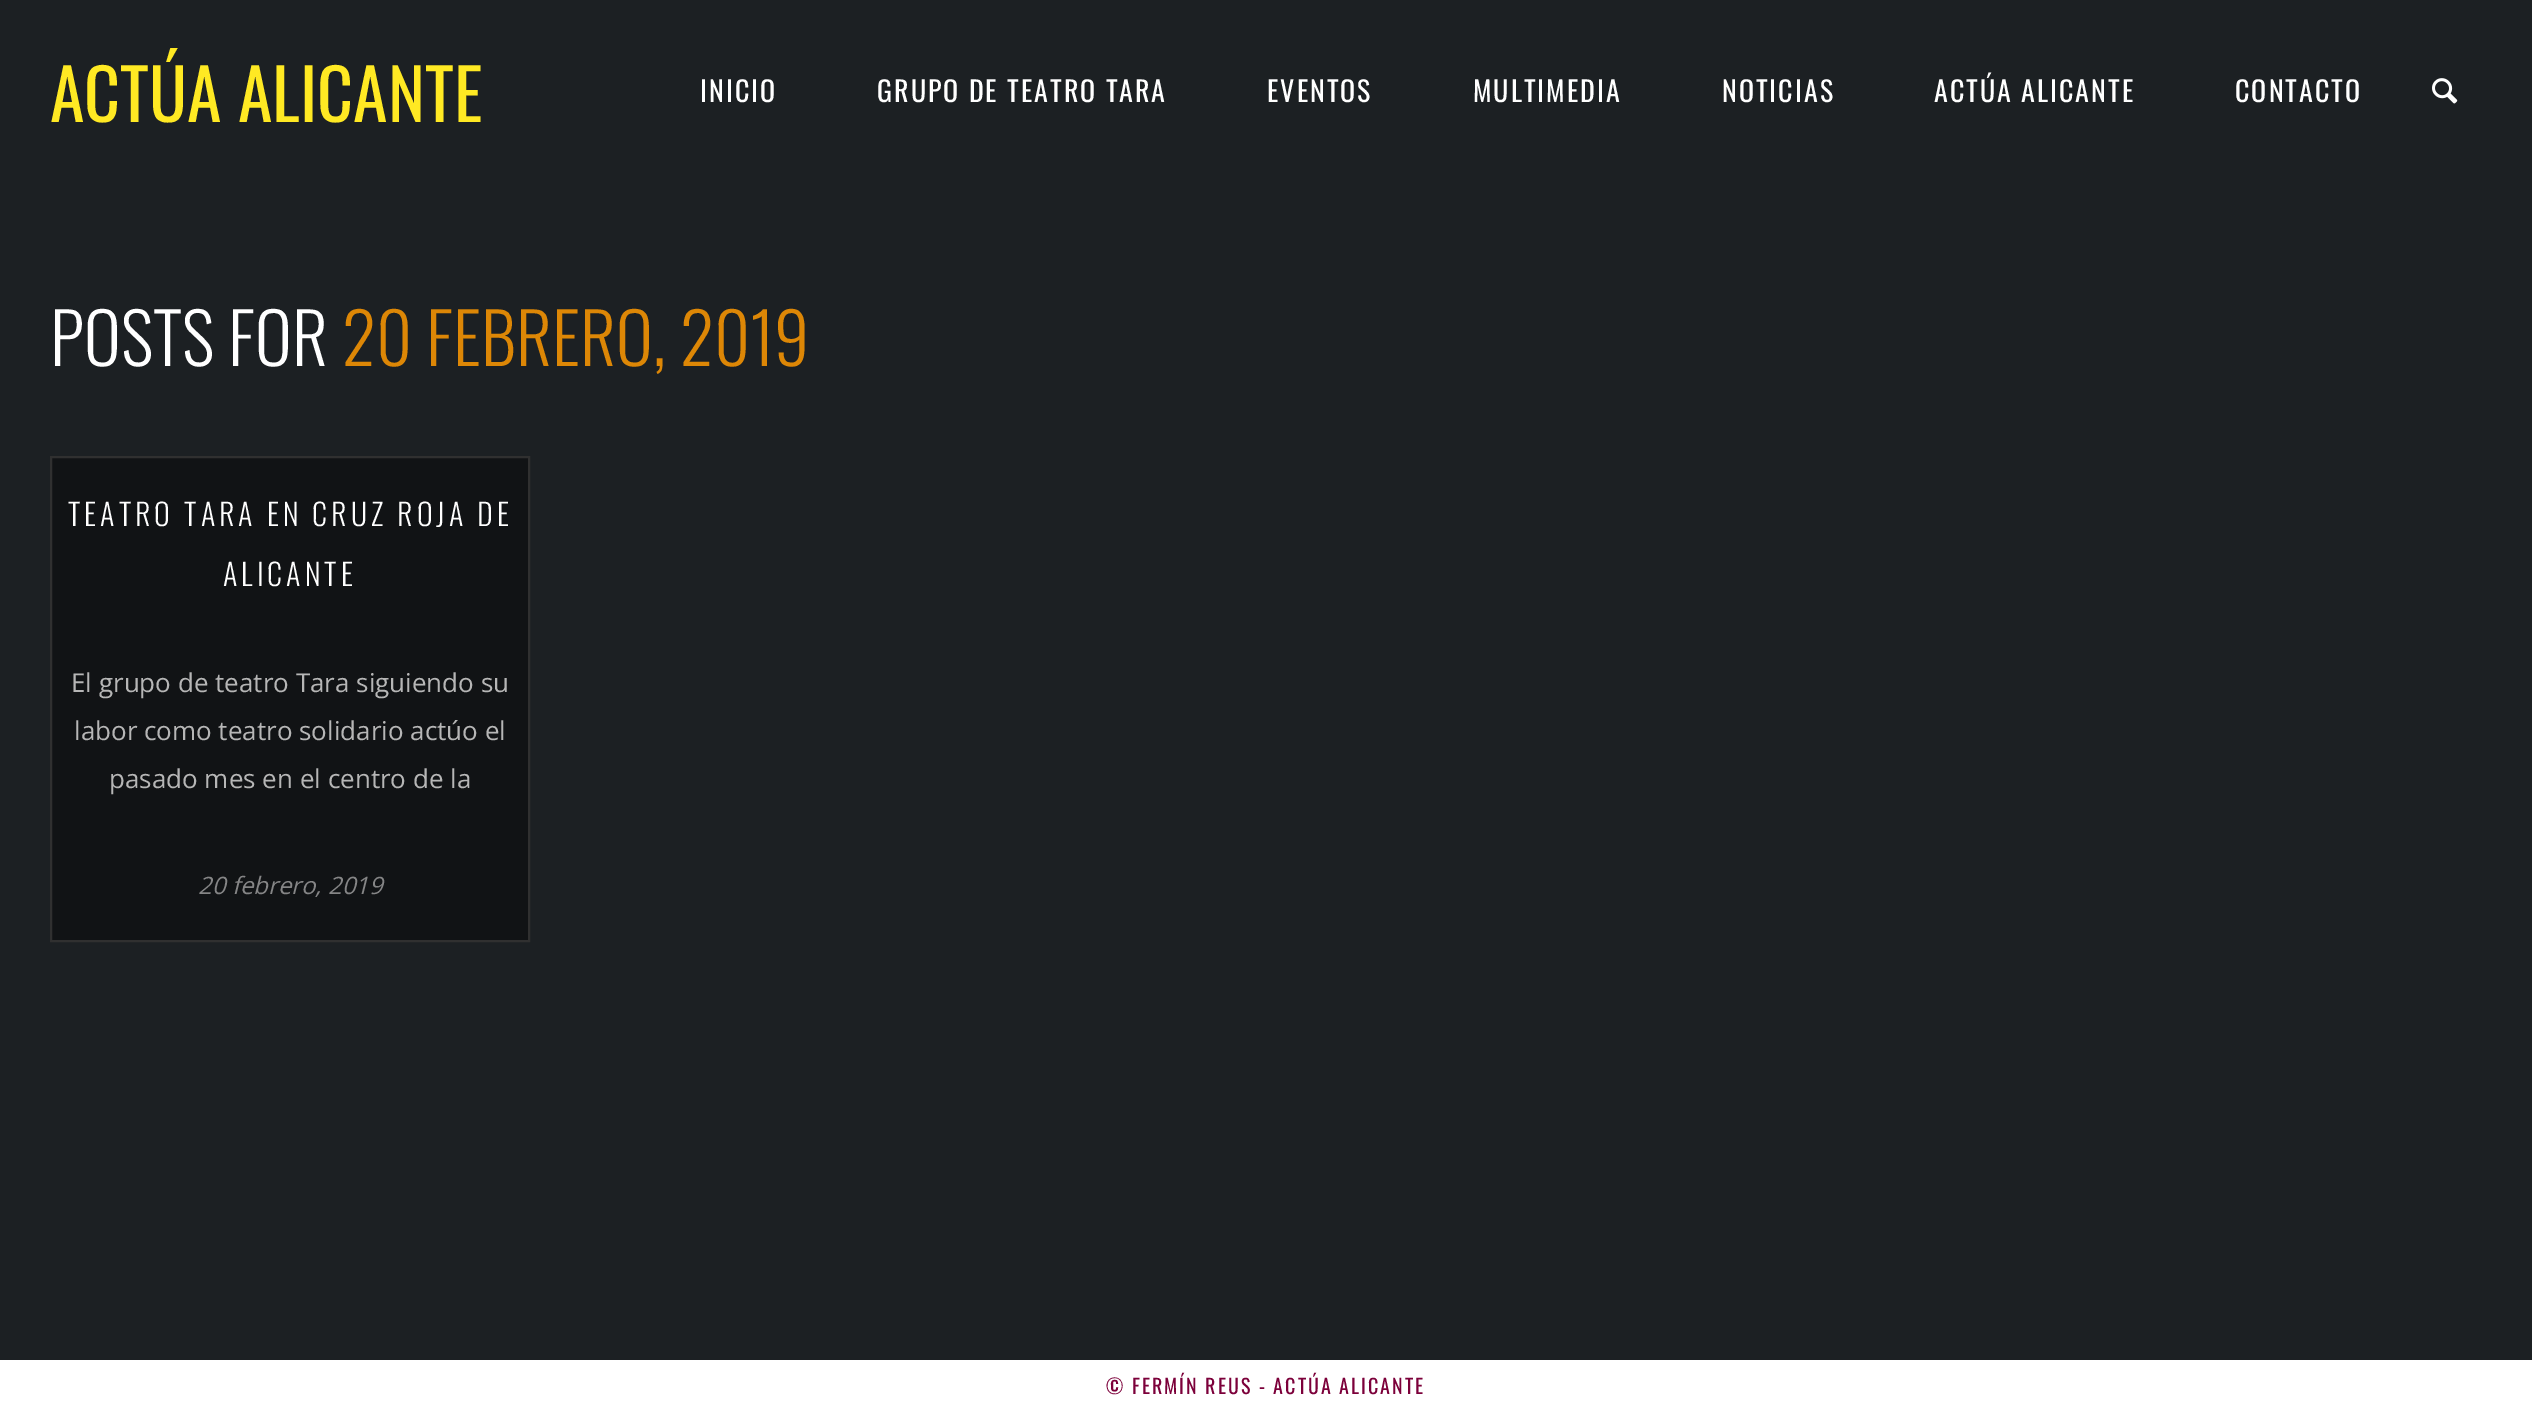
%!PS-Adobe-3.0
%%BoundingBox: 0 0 2532 1410
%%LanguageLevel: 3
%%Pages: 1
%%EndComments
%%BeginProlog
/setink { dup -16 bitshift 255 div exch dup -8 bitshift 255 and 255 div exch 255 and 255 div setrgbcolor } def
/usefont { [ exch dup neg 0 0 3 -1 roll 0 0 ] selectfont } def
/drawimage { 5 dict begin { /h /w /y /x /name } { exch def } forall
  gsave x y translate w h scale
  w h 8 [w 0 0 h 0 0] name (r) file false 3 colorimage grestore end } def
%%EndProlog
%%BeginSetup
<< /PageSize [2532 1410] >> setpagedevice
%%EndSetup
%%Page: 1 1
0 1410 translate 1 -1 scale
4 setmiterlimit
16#1C2023 setink
0 0 2532 1410 rectfill
/Oswald-Regular 70 usefont
16#FFE923 setink
50 122 moveto (ACTÚA ALICANTE) show
/Oswald-Regular 28 usefont
16#FFFFFF setink
700 102 moveto 2 0 (INICIO) ashow
877 102 moveto 2 0 (GRUPO DE TEATRO TARA) ashow
1267 102 moveto 2 0 (EVENTOS) ashow
1473 102 moveto 2 0 (MULTIMEDIA) ashow
1722 102 moveto 2 0 (NOTICIAS) ashow
1934 102 moveto 2 0 (ACTÚA ALICANTE) ashow
2235 102 moveto 2 0 (CONTACTO) ashow
(img1.raw) 2432 78 26 26 drawimage
/Oswald-Light 70 usefont
50 366 moveto (POSTS FOR) show
16#DD8706 setink
342 366 moveto (20 FEBRERO, 2019) show
16#111315 setink
51 457 moveto 529 457 lineto 529 941 lineto 51 941 lineto closepath gsave fill grestore
16#303030 setink
2 setlinewidth
stroke
/Oswald-Light 30 usefont
16#FFFFFF setink
68 526 moveto 4 0 (TEATRO TARA EN CRUZ ROJA DE) ashow
223 586 moveto 4 0 (ALICANTE) ashow
/OpenSans-Regular 26 usefont
16#B6B6B6 setink
[
    [(El grupo de teatro Tara siguiendo su) 71 692]
    [(labor como teatro solidario actúo el) 74 740]
    [(pasado mes en el centro de la) 109 788]
] { aload pop moveto show } forall
/OpenSans-Italic 24 usefont
16#858586 setink
198 894 moveto (20 febrero, 2019) show
16#FFFFFF setink
0 1360 2532 50 rectfill
/Oswald-Regular 20 usefont
16#7C003A setink
1106 1394 moveto 2 0 (© FERMÍN REUS - ACTÚA ALICANTE) ashow
showpage
%%EOF
